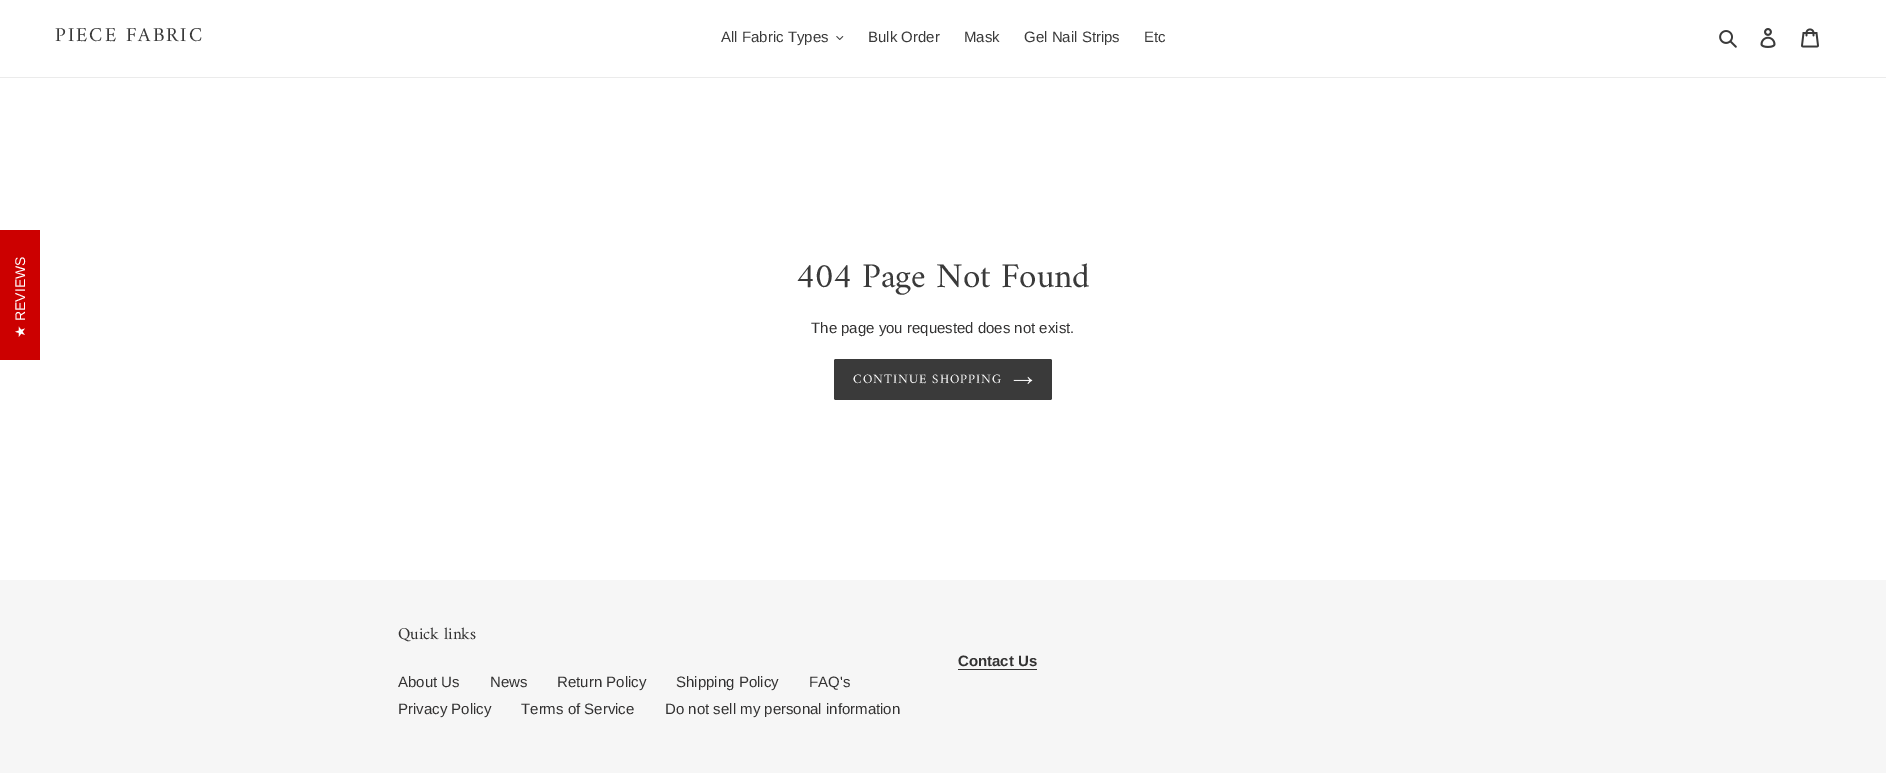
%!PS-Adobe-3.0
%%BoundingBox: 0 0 1886 773
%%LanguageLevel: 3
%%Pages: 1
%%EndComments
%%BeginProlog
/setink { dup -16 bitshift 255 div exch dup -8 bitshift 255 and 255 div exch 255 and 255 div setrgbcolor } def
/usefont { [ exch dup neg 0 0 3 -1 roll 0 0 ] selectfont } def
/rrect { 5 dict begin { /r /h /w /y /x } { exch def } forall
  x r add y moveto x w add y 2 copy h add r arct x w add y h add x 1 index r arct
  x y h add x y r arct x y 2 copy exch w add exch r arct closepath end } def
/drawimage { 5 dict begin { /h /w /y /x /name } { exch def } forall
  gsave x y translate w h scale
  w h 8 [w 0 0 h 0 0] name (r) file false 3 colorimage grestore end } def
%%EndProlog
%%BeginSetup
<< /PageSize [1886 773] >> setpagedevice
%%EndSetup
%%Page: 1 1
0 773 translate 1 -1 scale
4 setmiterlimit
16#FFFFFF setink
0 0 1886 773 rectfill
16#EBEBEB setink
0 77 1886 1 rectfill
/Amiri-Regular 20 usefont
16#3A3A3A setink
55 41 moveto 2 0 (PIECE FABRIC) ashow
/LiberationSans-Regular 15 usefont
721 42 moveto (All Fabric Types) show
(img1.raw) 836 36 8 4 drawimage
[
    [(Bulk Order) 868 42]
    [(Mask) 964 42]
    [(Gel Nail Strips) 1024 42]
    [(Etc) 1144 42]
] { aload pop moveto show } forall
(img2.raw) 1719 30 18 18 drawimage
(img3.raw) 1760 28 16 20 drawimage
(img4.raw) 1801 28 18 20 drawimage
16#CC0000 setink
0 230 40 130 rectfill
/LiberationSans-Regular 14 usefont
16#FFFFFF setink
gsave 25 321 translate -90 rotate 0 0 moveto (REVIEWS) show grestore
/DejaVuSans-Regular 14 usefont
gsave 25 338 translate -90 rotate 0 0 moveto (★) show grestore
/Amiri-Regular 35 usefont
16#3A3A3A setink
796 287 moveto (404 Page Not Found) show
/LiberationSans-Regular 15 usefont
16#333232 setink
811 333 moveto (The page you requested does not exist.) show
16#3A3A3A setink
834 359 218 41 2 rrect fill
/Amiri-Regular 13 usefont
16#FFFFFF setink
853 383 moveto 1 0 (CONTINUE SHOPPING) ashow
(img5.raw) 1013 376 20 8 drawimage
16#F6F6F6 setink
0 580 1886 193 rectfill
/Amiri-Regular 17 usefont
16#333232 setink
398 639 moveto (Quick links) show
/LiberationSans-Regular 15 usefont
[
    [(About Us) 398 687]
    [(News) 490 687]
    [(Return Policy) 557 687]
    [(Shipping Policy) 676 687]
    [(FAQ's) 809 687]
    [(Privacy Policy) 398 714]
    [(Terms of Service) 521 714]
    [(Do not sell my personal information) 665 714]
] { aload pop moveto show } forall
/LiberationSans-Bold 15 usefont
958 666 moveto (Contact Us) show
958 669 79 1 rectfill
showpage
%%EOF
